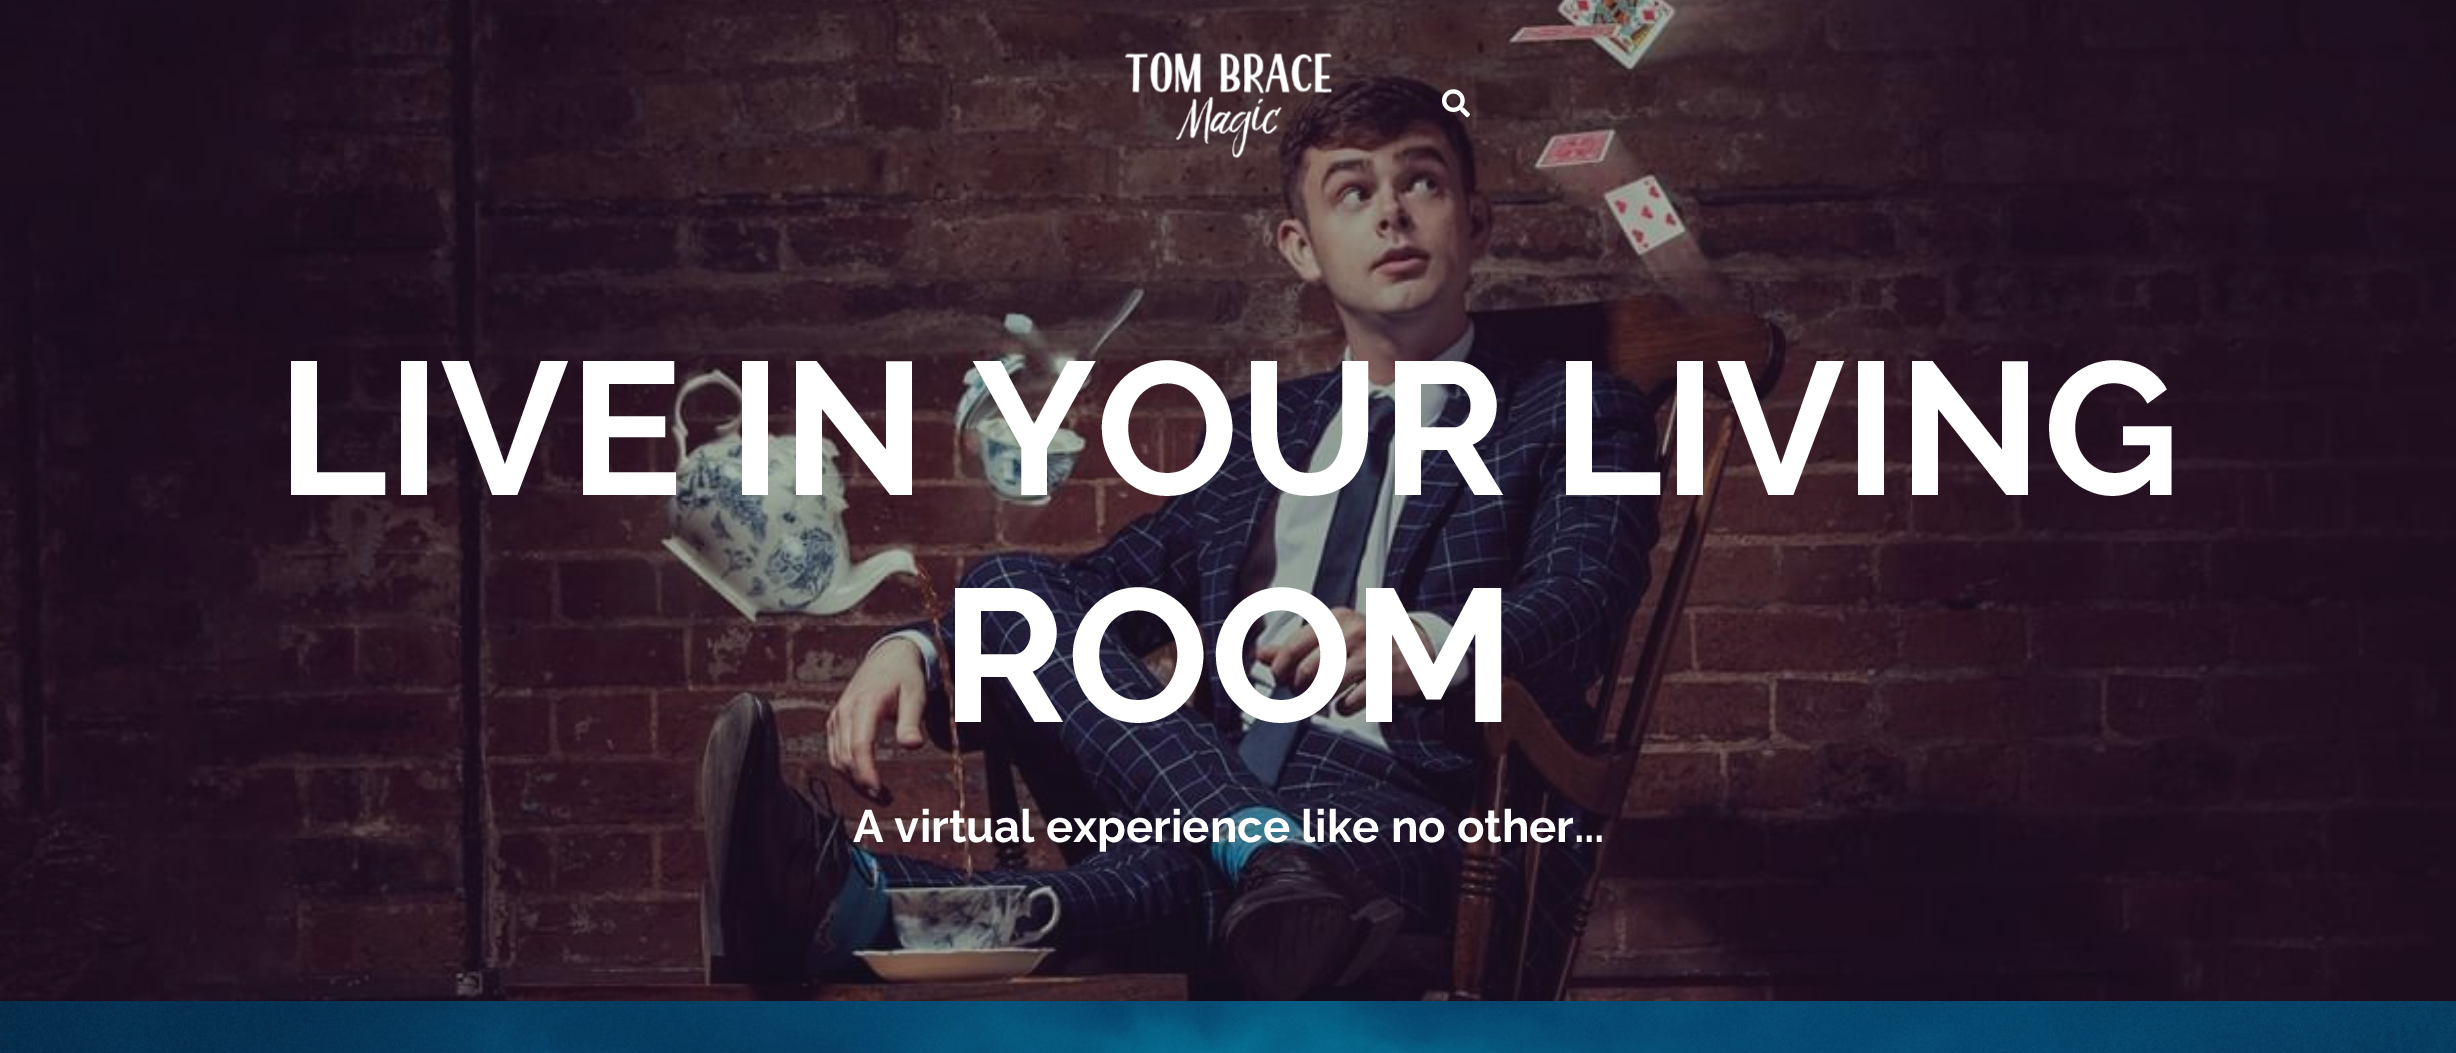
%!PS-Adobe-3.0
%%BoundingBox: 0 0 2456 1053
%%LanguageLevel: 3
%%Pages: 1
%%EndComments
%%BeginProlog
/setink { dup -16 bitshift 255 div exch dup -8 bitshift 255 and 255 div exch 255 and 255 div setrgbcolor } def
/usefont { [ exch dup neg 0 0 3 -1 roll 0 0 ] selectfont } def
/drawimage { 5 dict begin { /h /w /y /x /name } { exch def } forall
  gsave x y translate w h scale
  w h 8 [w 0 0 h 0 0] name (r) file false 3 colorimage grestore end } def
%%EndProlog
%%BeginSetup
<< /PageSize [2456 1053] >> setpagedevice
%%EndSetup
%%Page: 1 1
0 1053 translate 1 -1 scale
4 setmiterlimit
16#FFFFFF setink
0 0 2456 1053 rectfill
(img3.raw) 0 0 2456 1001 drawimage
(img1.raw) 1125 52 208 106 drawimage
(img2.raw) 1442 89 28 29 drawimage
/Raleway-Bold 189 usefont
277 495 moveto (LIVE IN YOUR LIVING) show
941 722 moveto (ROOM) show
/Raleway-Bold 45.5 usefont
853 842 moveto (A virtual experience like no other...) show
(img4.raw) 0 1001 2456 52 drawimage
showpage
%%EOF
